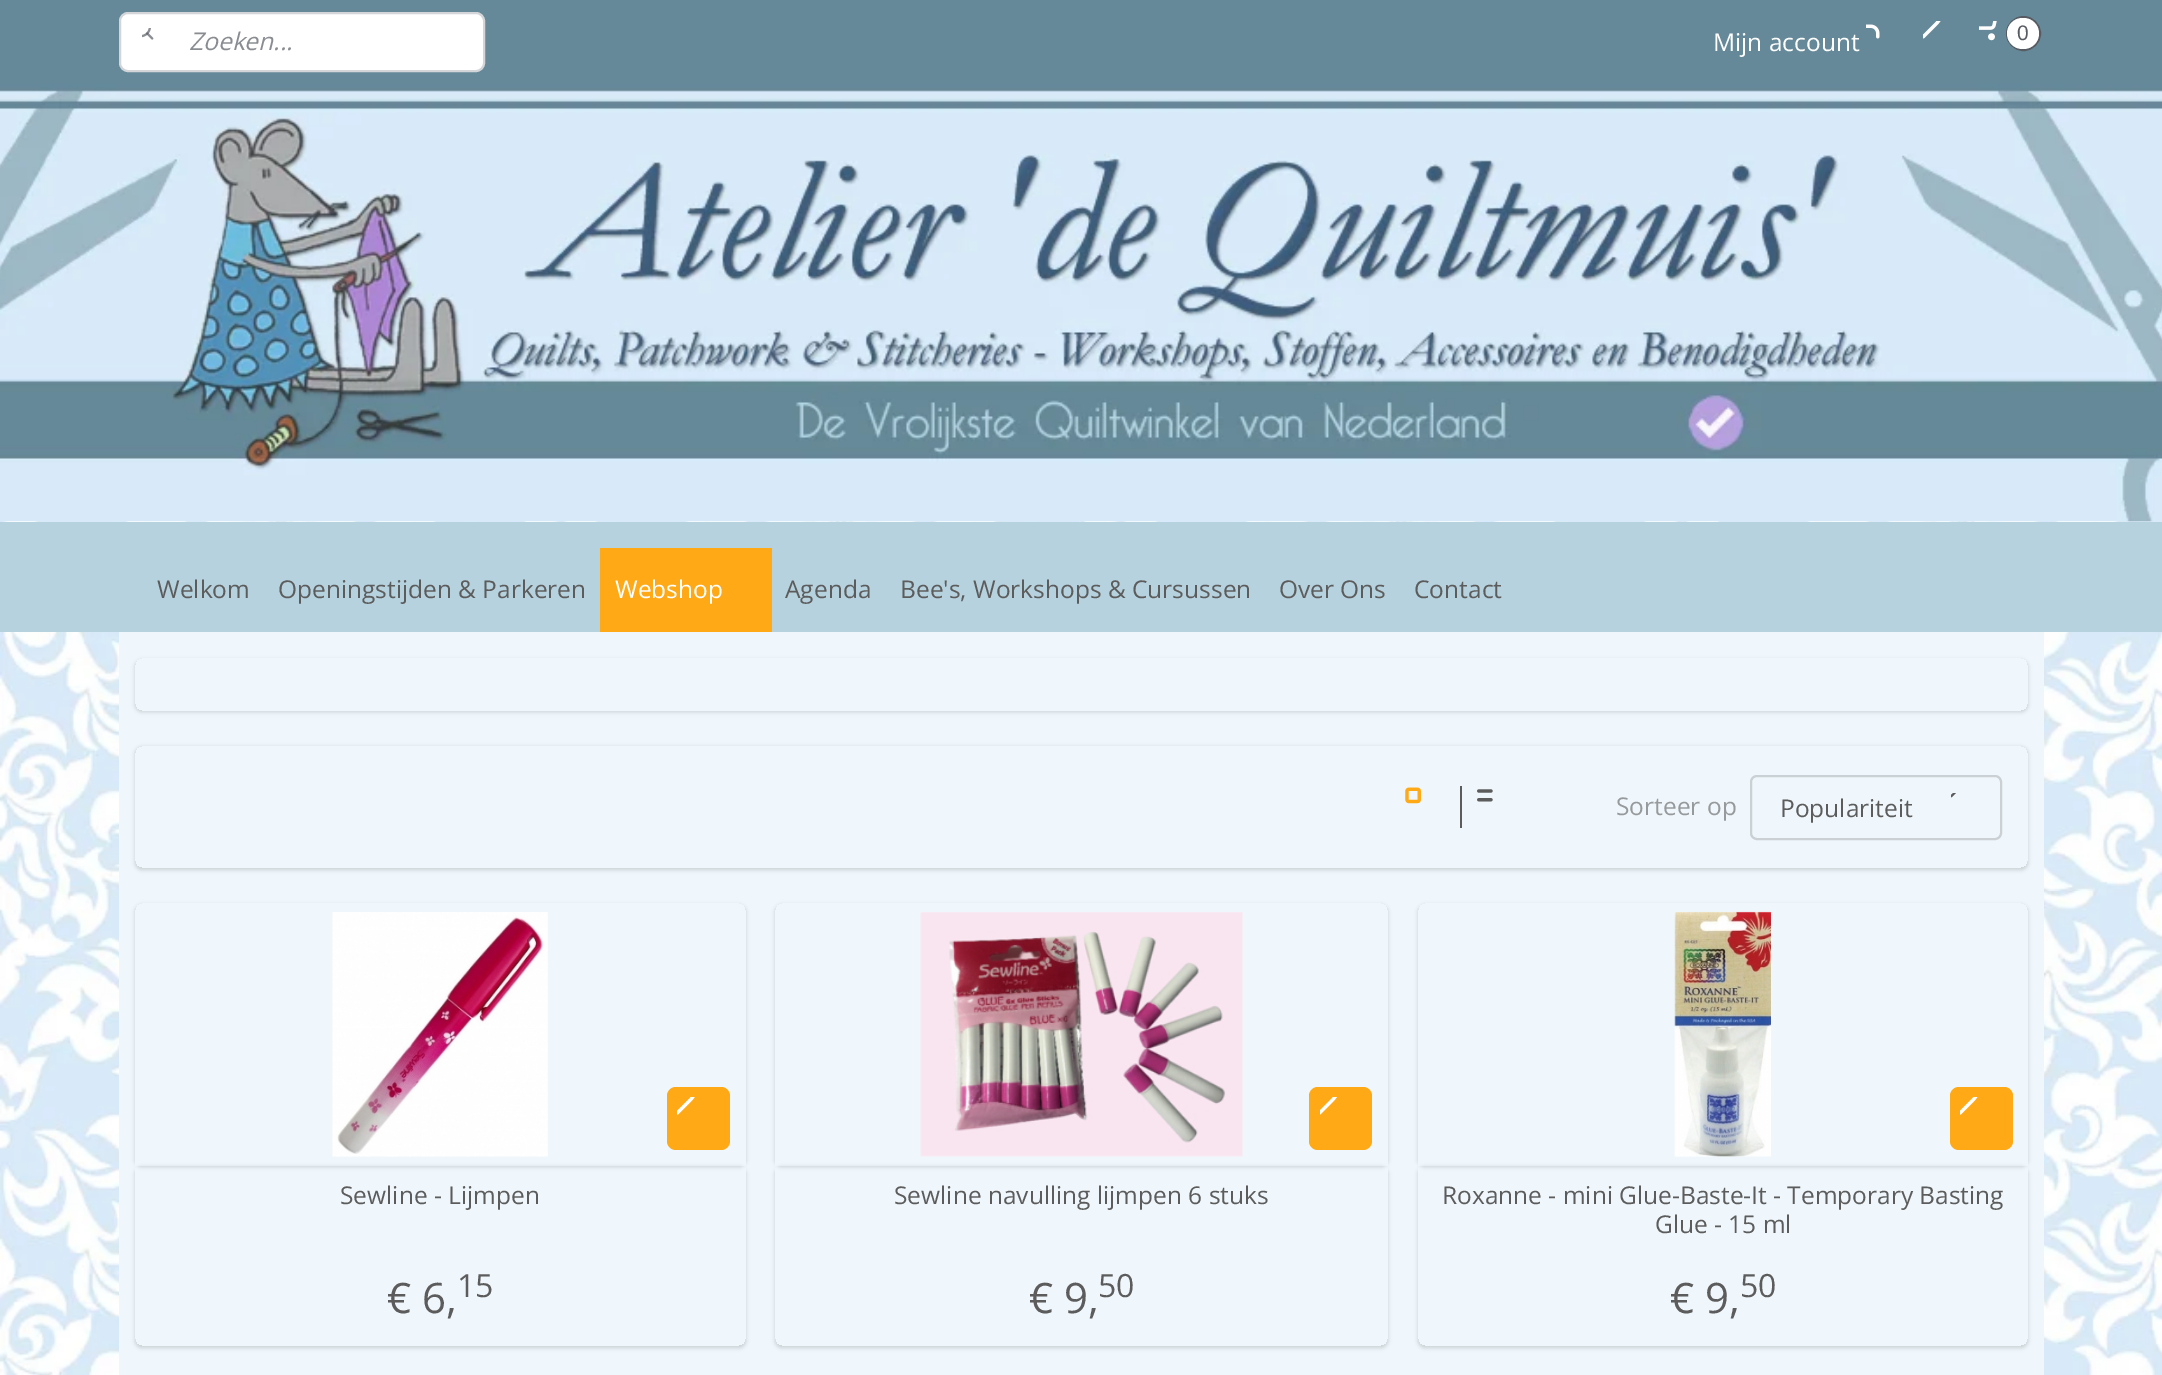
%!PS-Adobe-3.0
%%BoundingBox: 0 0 2162 1375
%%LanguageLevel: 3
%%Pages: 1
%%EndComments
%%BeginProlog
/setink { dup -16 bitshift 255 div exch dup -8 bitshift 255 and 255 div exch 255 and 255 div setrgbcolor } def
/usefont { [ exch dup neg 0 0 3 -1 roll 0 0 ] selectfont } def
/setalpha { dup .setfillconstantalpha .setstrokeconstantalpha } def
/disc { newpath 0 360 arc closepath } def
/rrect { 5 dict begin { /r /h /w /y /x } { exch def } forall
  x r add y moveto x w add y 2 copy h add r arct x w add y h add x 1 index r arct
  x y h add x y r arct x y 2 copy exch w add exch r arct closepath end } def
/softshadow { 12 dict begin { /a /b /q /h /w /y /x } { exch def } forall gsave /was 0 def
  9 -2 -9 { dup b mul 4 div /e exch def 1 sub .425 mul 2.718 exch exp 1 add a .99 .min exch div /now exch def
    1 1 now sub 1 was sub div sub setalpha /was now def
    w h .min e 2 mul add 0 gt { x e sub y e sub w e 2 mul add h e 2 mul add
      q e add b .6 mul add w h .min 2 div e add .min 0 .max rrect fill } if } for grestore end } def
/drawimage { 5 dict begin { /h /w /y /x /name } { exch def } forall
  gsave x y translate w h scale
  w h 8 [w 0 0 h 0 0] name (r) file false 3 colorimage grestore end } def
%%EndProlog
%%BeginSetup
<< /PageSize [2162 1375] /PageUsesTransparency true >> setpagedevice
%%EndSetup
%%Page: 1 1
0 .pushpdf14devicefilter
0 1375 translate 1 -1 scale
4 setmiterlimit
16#FFFFFF setink
0 0 2162 1375 rectfill
16#658999 setink
0 0 2162 84 rectfill
16#FFFFFF setink
120 13 364 58 8 rrect gsave fill grestore
16#D3D5D9 setink
2 setlinewidth
stroke
(img1.raw) 142 28 12 12 drawimage
/OpenSans-Italic 24.5 usefont
16#898C91 setink
189 50 moveto (Zoeken...) show
(img2.raw) 1923 21 18 18 drawimage
(img3.raw) 1866 24 14 15 drawimage
/OpenSans-Regular 24.5 usefont
16#FFFFFF setink
1713 51 moveto (Mijn account) show
(img4.raw) 1979 21 18 20 drawimage
16#575B62 setink
2023.5 33.5 16.5 disc stroke
16#FFFFFF setink
2007 18 32 31 15.5 rrect fill
/LiberationSans-Regular 21 usefont
16#575B62 setink
2017 40 moveto (0) show
(img6.raw) 0 521 2162 854 drawimage
(img5.raw) 0 84 2162 438 drawimage
16#B6D2DE setink
0 522 2162 110 rectfill
/OpenSans-Regular 24.5 usefont
16#5C5C5C setink
157 598 moveto (Welkom) show
278 598 moveto (Openingstijden & Parkeren) show
16#FFA917 setink
600 548 172 84 rectfill
16#FFFFFF setink
615 598 moveto (Webshop) show
16#5C5C5C setink
[
    [(Agenda) 785 598]
    [(Bee's, Workshops & Cursussen) 900 598]
    [(Over Ons) 1279 598]
    [(Contact) 1414 598]
] { aload pop moveto show } forall
16#EFF7FC setink
119 632 1925 743 rectfill
gsave
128 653 moveto 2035 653 lineto 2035 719 lineto 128 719 lineto closepath 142 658 moveto 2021 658 lineto 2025 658 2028 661 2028 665 curveto 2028 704 lineto 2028 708 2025 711 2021 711 curveto 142 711 lineto 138 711 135 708 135 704 curveto 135 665 lineto 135 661 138 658 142 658 curveto closepath eoclip newpath
16#000000 setink
135 660 1893 52 7 2 0.15 softshadow
grestore
gsave
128 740 moveto 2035 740 lineto 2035 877 lineto 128 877 lineto closepath 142 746 moveto 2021 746 lineto 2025 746 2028 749 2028 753 curveto 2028 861 lineto 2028 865 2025 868 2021 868 curveto 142 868 lineto 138 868 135 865 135 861 curveto 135 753 lineto 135 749 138 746 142 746 curveto closepath eoclip newpath
16#000000 setink
135 747 1893 123 7 2 0.15 softshadow
grestore
(img7.raw) 1405 787 16 17 drawimage
16#5C5C5C setink
1460 786 2 42 rectfill
(img8.raw) 1477 789 16 13 drawimage
16#979A9C setink
1616 815 moveto (Sorteer op) show
16#CAD0D4 setink
1751 776 250 63 6 rrect stroke
(img9.raw) 1951 793 5 5 drawimage
16#5C5C5C setink
1780 817 moveto (Populariteit) show
gsave
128 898 moveto 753 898 lineto 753 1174 lineto 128 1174 lineto closepath 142 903 moveto 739 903 lineto 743 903 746 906 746 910 curveto 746 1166 lineto 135 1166 lineto 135 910 lineto 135 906 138 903 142 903 curveto closepath eoclip newpath
16#000000 setink
135 905 611 262 7 2 0.15 softshadow
grestore
(img10.raw) 332 912 216 245 drawimage
16#FFA917 setink
667 1087 63 63 9 rrect fill
(img11.raw) 677 1097 18 18 drawimage
gsave
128 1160 moveto 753 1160 lineto 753 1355 lineto 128 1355 lineto closepath 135 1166 moveto 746 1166 lineto 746 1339 lineto 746 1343 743 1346 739 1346 curveto 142 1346 lineto 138 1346 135 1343 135 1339 curveto closepath eoclip newpath
16#000000 setink
135 1167 611 181 7 2 0.15 softshadow
grestore
16#5C5C5C setink
340 1204 moveto (Sewline - Lijmpen) show
/OpenSans-Regular 42 usefont
387 1313 moveto (€ 6,) show
/OpenSans-Regular 32 usefont
457 1297 moveto (15) show
gsave
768 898 moveto 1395 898 lineto 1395 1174 lineto 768 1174 lineto closepath 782 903 moveto 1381 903 lineto 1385 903 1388 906 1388 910 curveto 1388 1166 lineto 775 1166 lineto 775 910 lineto 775 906 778 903 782 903 curveto closepath eoclip newpath
16#000000 setink
775 905 613 262 7 2 0.15 softshadow
grestore
(img12.raw) 920 912 323 245 drawimage
16#FFA917 setink
1309 1087 63 63 9 rrect fill
(img13.raw) 1320 1097 17 18 drawimage
gsave
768 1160 moveto 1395 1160 lineto 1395 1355 lineto 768 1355 lineto closepath 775 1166 moveto 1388 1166 lineto 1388 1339 lineto 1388 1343 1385 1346 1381 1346 curveto 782 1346 lineto 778 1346 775 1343 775 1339 curveto closepath eoclip newpath
16#000000 setink
775 1167 613 181 7 2 0.15 softshadow
grestore
/OpenSans-Regular 24.5 usefont
16#5C5C5C setink
894 1204 moveto (Sewline navulling lijmpen 6 stuks) show
/OpenSans-Regular 42 usefont
1029 1313 moveto (€ 9,) show
/OpenSans-Regular 32 usefont
1098 1297 moveto (50) show
gsave
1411 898 moveto 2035 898 lineto 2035 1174 lineto 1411 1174 lineto closepath 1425 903 moveto 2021 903 lineto 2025 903 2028 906 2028 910 curveto 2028 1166 lineto 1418 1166 lineto 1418 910 lineto 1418 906 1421 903 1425 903 curveto closepath eoclip newpath
16#000000 setink
1418 905 610 262 7 2 0.15 softshadow
grestore
(img14.raw) 1674 911 97 246 drawimage
16#FFA917 setink
1950 1087 63 63 9 rrect fill
(img15.raw) 1960 1097 18 18 drawimage
gsave
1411 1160 moveto 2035 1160 lineto 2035 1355 lineto 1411 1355 lineto closepath 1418 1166 moveto 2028 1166 lineto 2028 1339 lineto 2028 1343 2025 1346 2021 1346 curveto 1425 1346 lineto 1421 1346 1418 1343 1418 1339 curveto closepath eoclip newpath
16#000000 setink
1418 1167 610 181 7 2 0.15 softshadow
grestore
/OpenSans-Regular 24.5 usefont
16#5C5C5C setink
1442 1204 moveto (Roxanne - mini Glue-Baste-It - Temporary Basting) show
1655 1233 moveto (Glue - 15 ml) show
/OpenSans-Regular 42 usefont
1670 1313 moveto (€ 9,) show
/OpenSans-Regular 32 usefont
1740 1297 moveto (50) show
.poppdf14devicefilter showpage
%%EOF
